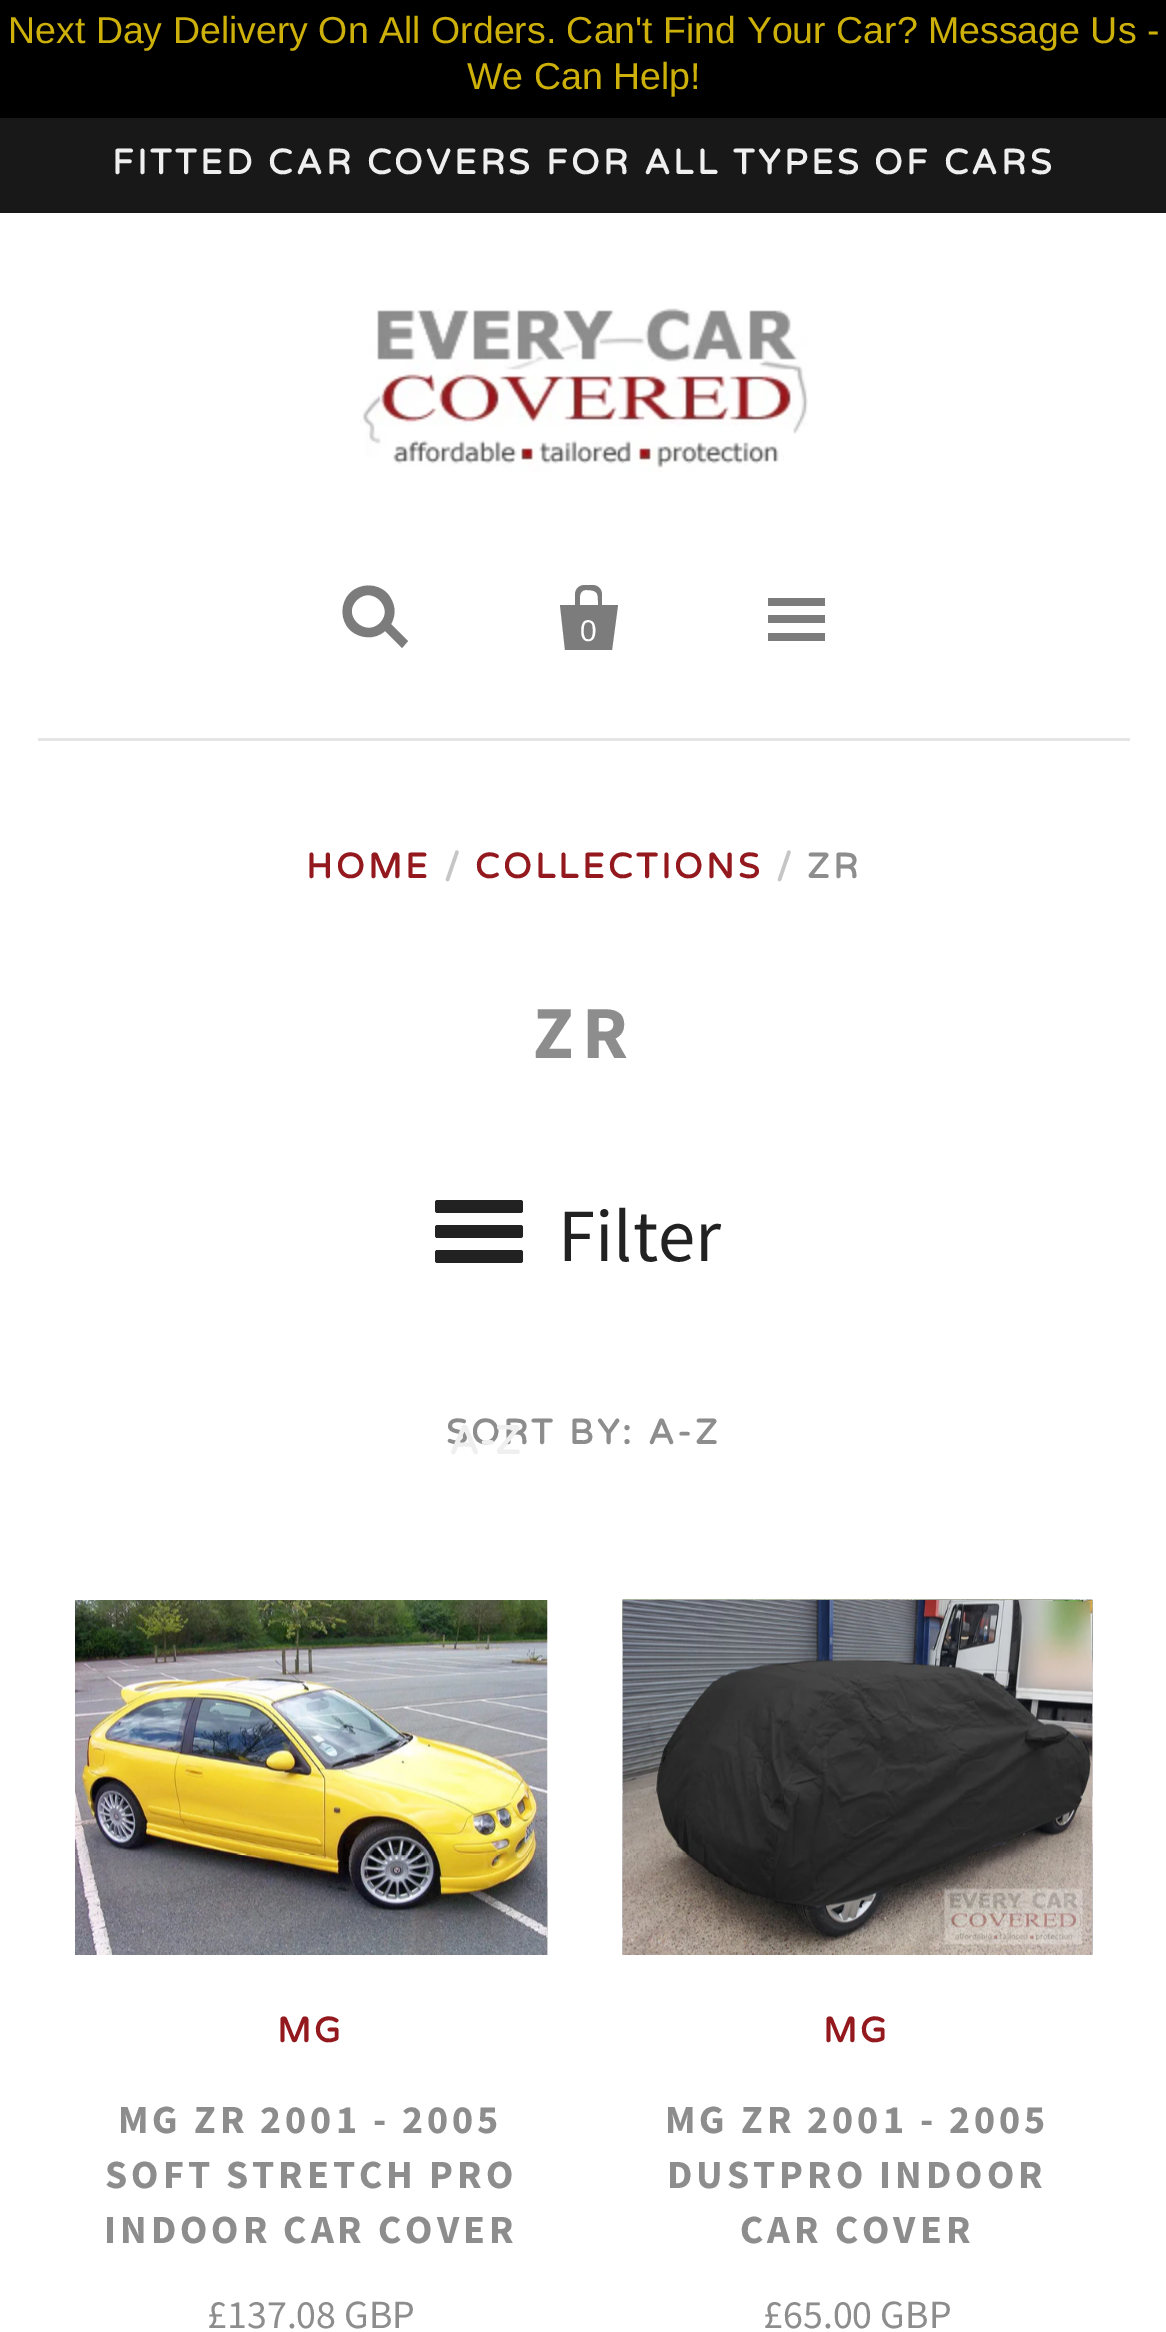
%!PS-Adobe-3.0
%%BoundingBox: 0 0 1166 2332
%%LanguageLevel: 3
%%Pages: 1
%%EndComments
%%BeginProlog
/setink { dup -16 bitshift 255 div exch dup -8 bitshift 255 and 255 div exch 255 and 255 div setrgbcolor } def
/usefont { [ exch dup neg 0 0 3 -1 roll 0 0 ] selectfont } def
/rrect { 5 dict begin { /r /h /w /y /x } { exch def } forall
  x r add y moveto x w add y 2 copy h add r arct x w add y h add x 1 index r arct
  x y h add x y r arct x y 2 copy exch w add exch r arct closepath end } def
/drawimage { 5 dict begin { /h /w /y /x /name } { exch def } forall
  gsave x y translate w h scale
  w h 8 [w 0 0 h 0 0] name (r) file false 3 colorimage grestore end } def
%%EndProlog
%%BeginSetup
<< /PageSize [1166 2332] >> setpagedevice
%%EndSetup
%%Page: 1 1
0 2332 translate 1 -1 scale
4 setmiterlimit
16#FFFFFF setink
0 0 1166 2332 rectfill
16#000000 setink
0 0 1166 118 rectfill
/LiberationSans-Regular 37.5 usefont
16#CDB10A setink
8 43 moveto (Next Day Delivery On All Orders. Can't Find Your Car? Message Us -) show
467 89 moveto (We Can Help!) show
16#181818 setink
0 118 1166 95 rectfill
/VarelaRound-Bold 35 usefont
16#EFEFEF setink
112 174 moveto 3.5 0 (FITTED CAR COVERS FOR ALL TYPES OF CARS) ashow
16#E5E5E5 setink
38 738 1092 3 rectfill
(img1.raw) 360 308 448 164 drawimage
16#7C7C7C setink
391 624 moveto 397 614 395 602 387 593 curveto 377 583 360 583 350 593 curveto 340 603 340 620 350 630 curveto 360 639 375 640 385 631 curveto 402 648 lineto 408 641 lineto closepath 380 623 moveto 365 638 341 615 357 600 curveto 372 585 395 608 380 623 curveto closepath fill
602 605 moveto 618 605 lineto 612 650 lineto 565 650 lineto 560 605 lineto 575 605 lineto 575 595 lineto 575 589 579 585 585 585 curveto 592 585 lineto 598 585 602 589 602 595 curveto closepath 586 590 moveto 578 590 580 600 580 605 curveto 598 605 lineto 598 594 599 590 586 590 curveto closepath fill
/LiberationSans-Regular 30 usefont
16#FFFFFF setink
580 641 moveto (0) show
[
    [768 615 57 8 16#7C7C7C]
    [768 598 57 8 16#7C7C7C]
    [768 633 57 8 16#7C7C7C]
] { aload pop setink rectfill } forall
/VarelaRound-Bold 35 usefont
16#93191E setink
306 878 moveto 3.5 0 (HOME) ashow
16#C6C6C6 setink
444 878 moveto 3.5 0 (/) ashow
16#93191E setink
475 878 moveto 3.5 0 (COLLECTIONS) ashow
16#C6C6C6 setink
776 878 moveto 3.5 0 (/) ashow
16#8D8D8D setink
807 878 moveto 3.5 0 (ZR) ashow
/SourceSansPro-Bold 75 usefont
533 1058 moveto 8 0 (ZR) ashow
16#222222 setink
435 1225 88 13 2.5 rrect fill
435 1200 88 13 2.5 rrect fill
435 1250 88 13 2.5 rrect fill
/SourceSansPro-Regular 75 usefont
558 1261 moveto (Filter) show
/VarelaRound-Bold 35 usefont
16#8D8D8D setink
446 1444 moveto 3.5 0 (SORT BY: A-Z) ashow
/VarelaRound-Bold 40 usefont
16#EFEFEF setink
449 1454 moveto (A-Z) show
(img2.raw) 547 1602 1 353 drawimage
(img3.raw) 75 1600 473 355 drawimage
/VarelaRound-Bold 35 usefont
16#93191E setink
277 2042 moveto 3.5 0 (MG) ashow
/SourceSansPro-Bold 40 usefont
16#8D8D8D setink
118 2133 moveto 4 0 (MG ZR 2001 - 2005) ashow
105 2188 moveto 4 0 (SOFT STRETCH PRO) ashow
104 2243 moveto 4 0 (INDOOR CAR COVER) ashow
/SourceSansPro-Regular 40 usefont
207 2328 moveto (£137.08 GBP) show
(img4.raw) 622 1599 471 356 drawimage
(img5.raw) 622 1600 471 355 drawimage
/VarelaRound-Bold 35 usefont
16#93191E setink
823 2042 moveto 3.5 0 (MG) ashow
/SourceSansPro-Bold 40 usefont
16#8D8D8D setink
665 2133 moveto 4 0 (MG ZR 2001 - 2005) ashow
667 2188 moveto 4 0 (DUSTPRO INDOOR) ashow
740 2243 moveto 4 0 (CAR COVER) ashow
/SourceSansPro-Regular 40 usefont
763 2328 moveto (£65.00 GBP) show
showpage
%%EOF
